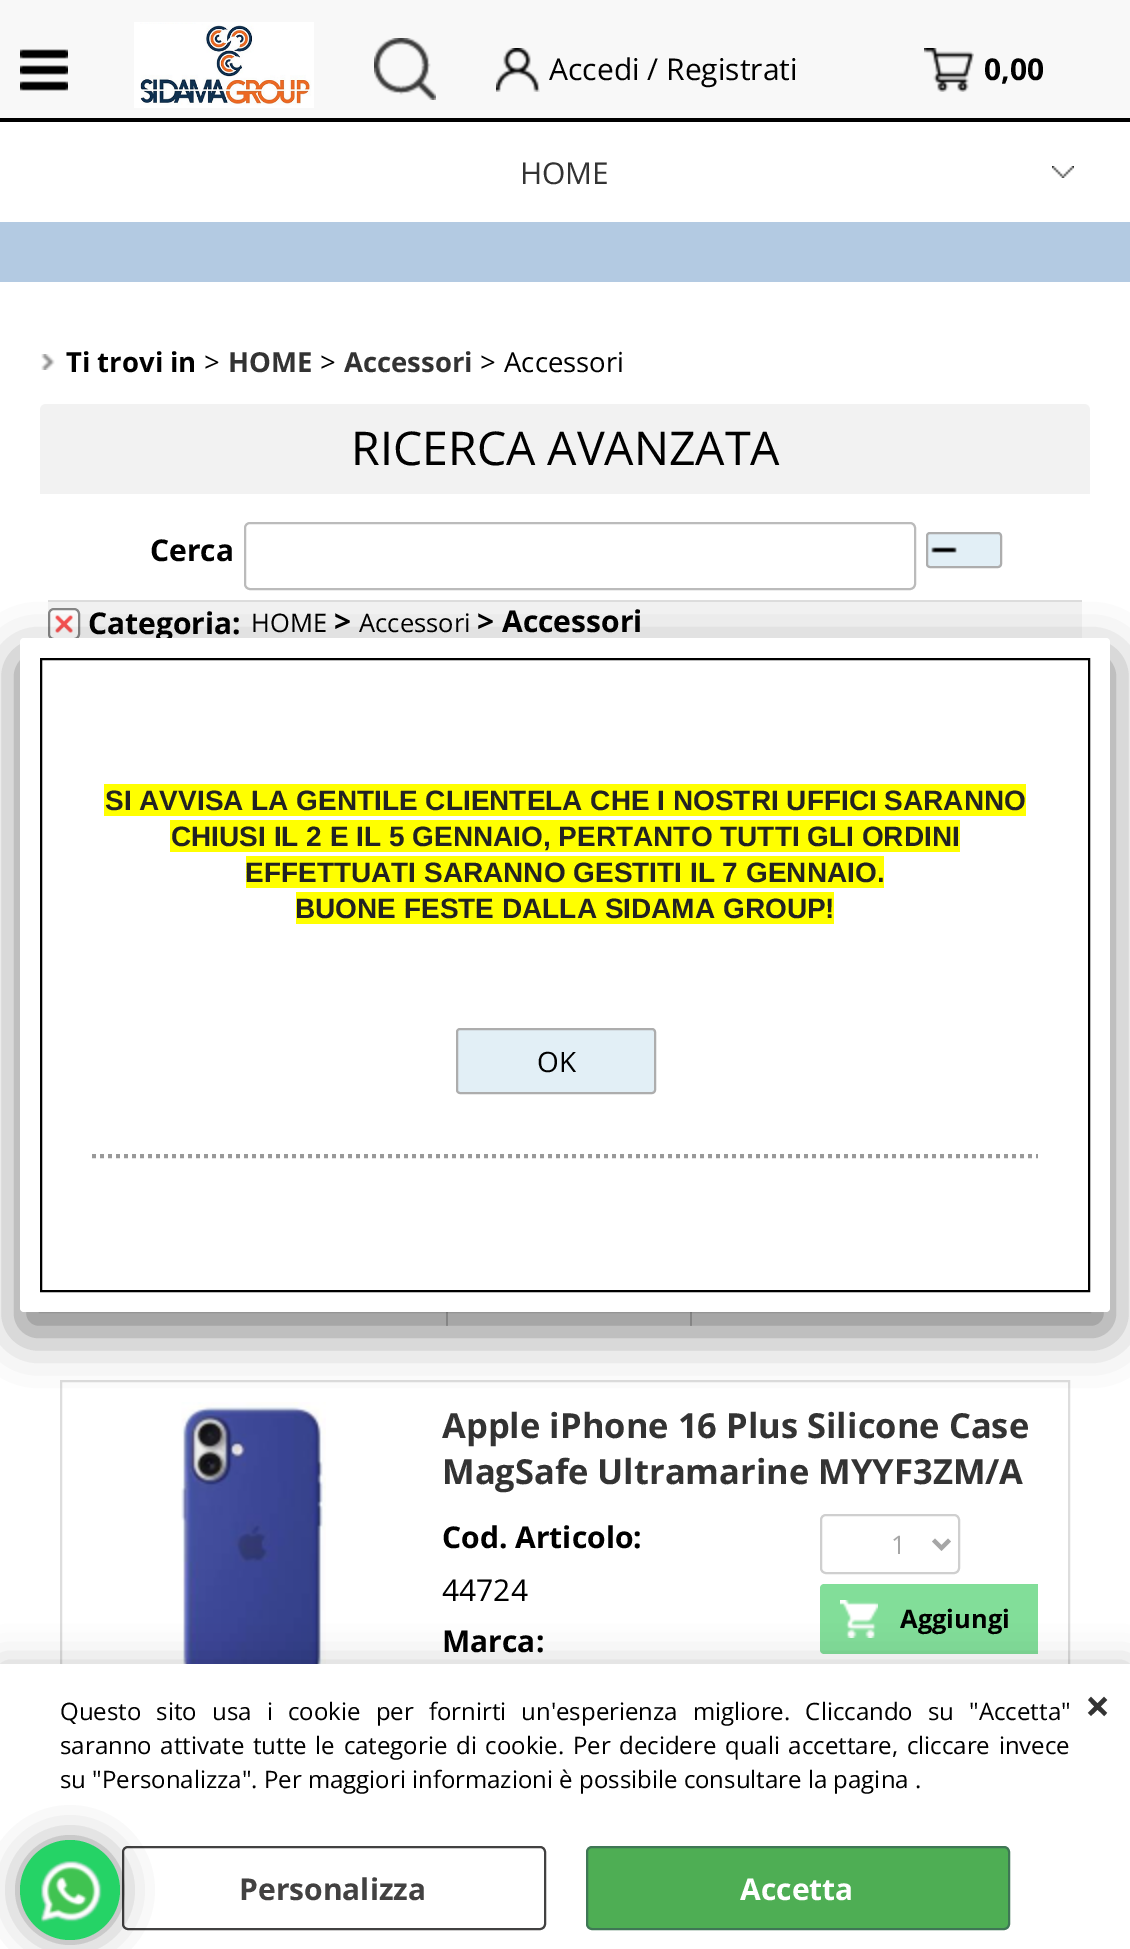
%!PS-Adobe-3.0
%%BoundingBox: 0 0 1130 1949
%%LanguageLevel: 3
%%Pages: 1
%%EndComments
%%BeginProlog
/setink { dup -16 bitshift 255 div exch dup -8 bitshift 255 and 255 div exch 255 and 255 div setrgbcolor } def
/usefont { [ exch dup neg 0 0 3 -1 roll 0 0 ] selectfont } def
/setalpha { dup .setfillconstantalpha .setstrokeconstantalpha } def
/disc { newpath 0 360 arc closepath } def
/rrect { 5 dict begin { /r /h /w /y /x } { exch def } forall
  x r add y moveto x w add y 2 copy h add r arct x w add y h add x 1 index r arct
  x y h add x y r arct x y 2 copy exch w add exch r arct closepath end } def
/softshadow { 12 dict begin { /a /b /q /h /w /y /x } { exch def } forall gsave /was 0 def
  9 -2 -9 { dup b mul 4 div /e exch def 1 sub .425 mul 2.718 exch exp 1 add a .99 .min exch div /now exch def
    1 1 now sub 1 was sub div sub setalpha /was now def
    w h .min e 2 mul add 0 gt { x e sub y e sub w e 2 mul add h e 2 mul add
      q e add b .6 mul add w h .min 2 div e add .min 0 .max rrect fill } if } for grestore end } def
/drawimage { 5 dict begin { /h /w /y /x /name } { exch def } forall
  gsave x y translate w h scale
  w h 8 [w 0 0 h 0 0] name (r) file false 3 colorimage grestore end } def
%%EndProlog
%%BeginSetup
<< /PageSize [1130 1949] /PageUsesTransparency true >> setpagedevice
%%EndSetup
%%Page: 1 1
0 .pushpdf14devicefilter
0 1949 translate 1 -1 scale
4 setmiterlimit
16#FFFFFF setink
0 0 1130 1949 rectfill
16#F8F8F8 setink
0 0 1130 118 rectfill
16#000000 setink
0 118 1130 4 rectfill
(img1.raw) 20 49 48 42 drawimage
(img2.raw) 134 22 180 86 drawimage
(img3.raw) 374 38 62 62 drawimage
(img4.raw) 496 48 44 44 drawimage
/OpenSans-Regular 30 usefont
549 80 moveto (Accedi / Registrati) show
(img5.raw) 924 48 50 44 drawimage
/OpenSans-Bold 30 usefont
984 80 moveto (0,00) show
16#B3CAE2 setink
0 222 1130 60 rectfill
(img6.raw) 1052 166 22 12 drawimage
/OpenSans-Regular 30 usefont
16#333333 setink
520 184 moveto (HOME) show
(img7.raw) 41 354 14 16 drawimage
/OpenSans-Bold 27.5 usefont
16#000000 setink
66 372 moveto (Ti trovi in) show
/OpenSans-Regular 27.5 usefont
204 372 moveto (>) show
/OpenSans-Bold 27.5 usefont
16#333333 setink
228 372 moveto (HOME) show
/OpenSans-Regular 27.5 usefont
16#000000 setink
320 372 moveto (>) show
/OpenSans-Bold 27.5 usefont
16#333333 setink
344 372 moveto (Accessori) show
/OpenSans-Regular 27.5 usefont
16#000000 setink
480 372 moveto (>) show
504 372 moveto (Accessori) show
16#F2F2F2 setink
46 404 moveto 1084 404 lineto 1087.5 404 1090 406.5 1090 410 curveto 1090 494 lineto 40 494 lineto 40 410 lineto 40 406.5 42.5 404 46 404 curveto closepath fill
/OpenSans-Regular 46.5 usefont
16#000000 setink
351 465 moveto (RICERCA AVANZATA) show
/OpenSans-Bold 30 usefont
150 561 moveto (Cerca) show
16#BBBBBB setink
2 setlinewidth
245 523 670 66 5 rrect stroke
16#E2EFF6 setink
926 532 76 36 4 rrect fill
(img8.raw) 931 547 26 6 drawimage
16#ADADAD setink
927 533 74 34 3 rrect stroke
16#DDDDDD setink
48 600 1034 2 rectfill
16#F5F5F5 setink
48 602 1034 36 rectfill
16#FFFFFF setink
48 608 32 32 6 rrect fill
(img9.raw) 55 615 18 18 drawimage
16#888888 setink
49 609 30 30 5 rrect stroke
16#000000 setink
88 634 moveto (Categoria:) show
/OpenSans-Regular 25.5 usefont
251 632 moveto (HOME) show
/OpenSans-Bold 30 usefont
334 632 moveto (>) show
/OpenSans-Regular 25.5 usefont
359 632 moveto (Accessori) show
/OpenSans-Bold 30 usefont
477 632 moveto (> Accessori) show
16#CCCCCC setink
446 1312 2 14 rectfill
690 1312 2 14 rectfill
16#DDDDDD setink
61 1381 1008 476 rectstroke
(img10.raw) 181 1402 145 262 drawimage
/OpenSans-Bold 34.5 usefont
16#333333 setink
442 1438 moveto (Apple iPhone 16 Plus Silicone Case) show
442 1484 moveto (MagSafe Ultramarine MYYF3ZM/A) show
/OpenSans-Bold 30 usefont
16#000000 setink
442 1548 moveto (Cod. Articolo:) show
/OpenSans-Regular 30 usefont
442 1601 moveto (44724) show
/OpenSans-Bold 30 usefont
442 1652 moveto (Marca:) show
16#CFCFCF setink
821 1515 138 58 5 rrect stroke
16#A6A6A6 setink
4 setlinewidth
933.5 1540 moveto 941.5 1548 lineto 949.5 1540 lineto stroke
/OpenSans-Regular 25.5 usefont
891 1554 moveto (1) show
16#82DE99 setink
824 1584 moveto 1038 1584 lineto 1038 1654 lineto 824 1654 lineto 822 1654 820 1652 820 1650 curveto 820 1588 lineto 820 1586 822 1584 824 1584 curveto closepath fill
(img11.raw) 840 1600 38 38 drawimage
/OpenSans-Bold 25.5 usefont
16#000000 setink
900 1628 moveto (Aggiungi) show
20 658 1090 674 4 25 0.5 softshadow
16#FFFFFF setink
20 638 1090 674 4 rrect fill
16#000000 setink
2 setlinewidth
41 659 1048 632 rectstroke
16#FFFF00 setink
104 784 922 32 rectfill
/LiberationSans-Bold 28 usefont
16#222222 setink
105 810 moveto (SI AVVISA LA GENTILE CLIENTELA CHE I NOSTRI UFFICI SARANNO) show
16#FFFF00 setink
170 820 790 32 rectfill
16#222222 setink
171 846 moveto (CHIUSI IL 2 E IL 5 GENNAIO, PERTANTO TUTTI GLI ORDINI) show
16#FFFF00 setink
246 856 638 32 rectfill
16#222222 setink
245 882 moveto (EFFETTUATI SARANNO GESTITI IL 7 GENNAIO.) show
16#FFFF00 setink
296 892 538 32 rectfill
16#222222 setink
295 918 moveto (BUONE FESTE DALLA SIDAMA GROUP!) show
16#E2EFF6 setink
457 1029 198 64 3 rrect gsave fill grestore
16#ADADAD setink
stroke
/OpenSans-Regular 28 usefont
16#000000 setink
537 1072 moveto (OK) show
16#999999 setink
4 setlinewidth
[4 4] 0 setdash
92 1156 moveto 1038 1156 lineto stroke
16#000000 setink
0 1664 1130 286 0 18 0.2 softshadow
16#FFFFFF setink
0 1664 1130 285 rectfill
/OpenSans-Regular 24 usefont
16#000000 setink
60 1720 moveto 8.9 0 32 (Questo sito usa i cookie per fornirti un'esperienza migliore. Cliccando su "Accetta") widthshow
60 1754 moveto 2.4 0 32 (saranno attivate tutte le categorie di cookie. Per decidere quali accettare, cliccare invece) widthshow
60 1788 moveto (su "Personalizza". Per maggiori informazioni è possibile consultare la pagina .) show
/OpenSans-Bold 44 usefont
16#333333 setink
1085 1722 moveto (×) show
16#424141 setink
2 setlinewidth
[] 0 setdash
123 1847 422 82 5 rrect stroke
/OpenSans-Bold 30 usefont
239 1900 moveto (Personalizza) show
16#4EAE54 setink
587 1847 422 82 5 rrect gsave fill grestore
16#3F7755 setink
stroke
16#FFFFFF setink
740 1900 moveto (Accetta) show
16#000000 setink
30 1850 80 80 40 20 0.7 softshadow
16#25D366 setink
70 1890 50 disc fill
(img12.raw) 41 1861 61 62 drawimage
.poppdf14devicefilter showpage
%%EOF
